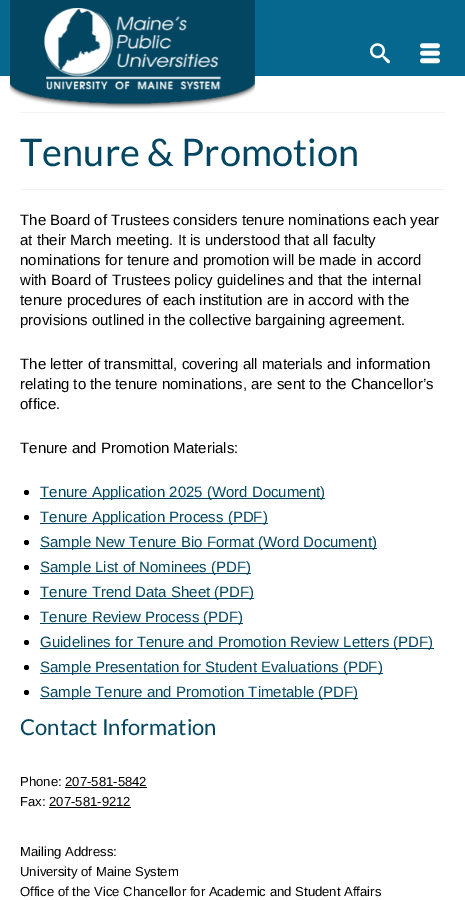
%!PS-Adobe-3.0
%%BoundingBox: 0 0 465 900
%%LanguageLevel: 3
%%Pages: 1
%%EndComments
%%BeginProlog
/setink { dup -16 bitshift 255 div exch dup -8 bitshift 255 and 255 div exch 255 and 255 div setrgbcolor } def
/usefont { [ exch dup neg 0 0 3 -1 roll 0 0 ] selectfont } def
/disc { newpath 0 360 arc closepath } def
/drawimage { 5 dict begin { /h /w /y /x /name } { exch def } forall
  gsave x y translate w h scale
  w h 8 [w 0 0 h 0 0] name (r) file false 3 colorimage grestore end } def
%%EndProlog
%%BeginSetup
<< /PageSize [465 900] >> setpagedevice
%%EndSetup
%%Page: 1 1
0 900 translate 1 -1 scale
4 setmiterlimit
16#FFFFFF setink
0 0 465 900 rectfill
16#07688F setink
0 0 465 76 rectfill
(img1.raw) 10 0 245 109 drawimage
(img2.raw) 370 43 20 21 drawimage
(img3.raw) 420 43 20 21 drawimage
16#F2F2F2 setink
20 112 425 1 rectfill
20 189 425 1 rectfill
/Lato-Regular 38 usefont
16#034661 setink
20 166 moveto (Tenure & Promotion) show
/LiberationSans-Regular 15 usefont
16#000000 setink
[
    [(The Board of Trustees considers tenure nominations each year) 20 225]
    [(at their March meeting. It is understood that all faculty) 20 245]
    [(nominations for tenure and promotion will be made in accord) 20 265]
    [(with Board of Trustees policy guidelines and that the internal) 20 285]
    [(tenure procedures of each institution are in accord with the) 20 305]
    [(provisions outlined in the collective bargaining agreement.) 20 325]
    [(The letter of transmittal, covering all materials and information) 20 369]
    [(relating to the tenure nominations, are sent to the Chancellor’s) 20 389]
    [(office.) 20 409]
    [(Tenure and Promotion Materials:) 20 453]
] { aload pop moveto show } forall
26.5 492.5 2.5 disc fill
16#034661 setink
40 498 285 1 rectfill
40 497 moveto (Tenure Application 2025 \(Word Document\)) show
16#000000 setink
26.5 517.5 2.5 disc fill
16#034661 setink
40 523 228 1 rectfill
40 522 moveto (Tenure Application Process \(PDF\)) show
16#000000 setink
26.5 542.5 2.5 disc fill
16#034661 setink
40 548 337 1 rectfill
40 547 moveto (Sample New Tenure Bio Format \(Word Document\)) show
16#000000 setink
26.5 567.5 2.5 disc fill
16#034661 setink
40 573 211 1 rectfill
40 572 moveto (Sample List of Nominees \(PDF\)) show
16#000000 setink
26.5 592.5 2.5 disc fill
16#034661 setink
40 598 214 1 rectfill
40 597 moveto (Tenure Trend Data Sheet \(PDF\)) show
16#000000 setink
26.5 617.5 2.5 disc fill
16#034661 setink
40 623 203 1 rectfill
40 622 moveto (Tenure Review Process \(PDF\)) show
16#000000 setink
26.5 642.5 2.5 disc fill
16#034661 setink
40 648 394 1 rectfill
40 647 moveto (Guidelines for Tenure and Promotion Review Letters \(PDF\)) show
16#000000 setink
26.5 667.5 2.5 disc fill
16#034661 setink
40 673 343 1 rectfill
40 672 moveto (Sample Presentation for Student Evaluations \(PDF\)) show
16#000000 setink
26.5 692.5 2.5 disc fill
16#034661 setink
40 698 318 1 rectfill
40 697 moveto (Sample Tenure and Promotion Timetable \(PDF\)) show
/Lato-Regular 22 usefont
20 735 moveto (Contact Information) show
/LiberationSans-Regular 13.1 usefont
16#000000 setink
20 786 moveto (Phone: 207-581-5842) show
65 787 82 1 rectfill
20 806 moveto (Fax: 207-581-9212) show
49 807 82 1 rectfill
[
    [(Mailing Address:) 20 856]
    [(University of Maine System) 20 876]
    [(Office of the Vice Chancellor for Academic and Student Affairs) 20 896]
] { aload pop moveto show } forall
showpage
%%EOF
